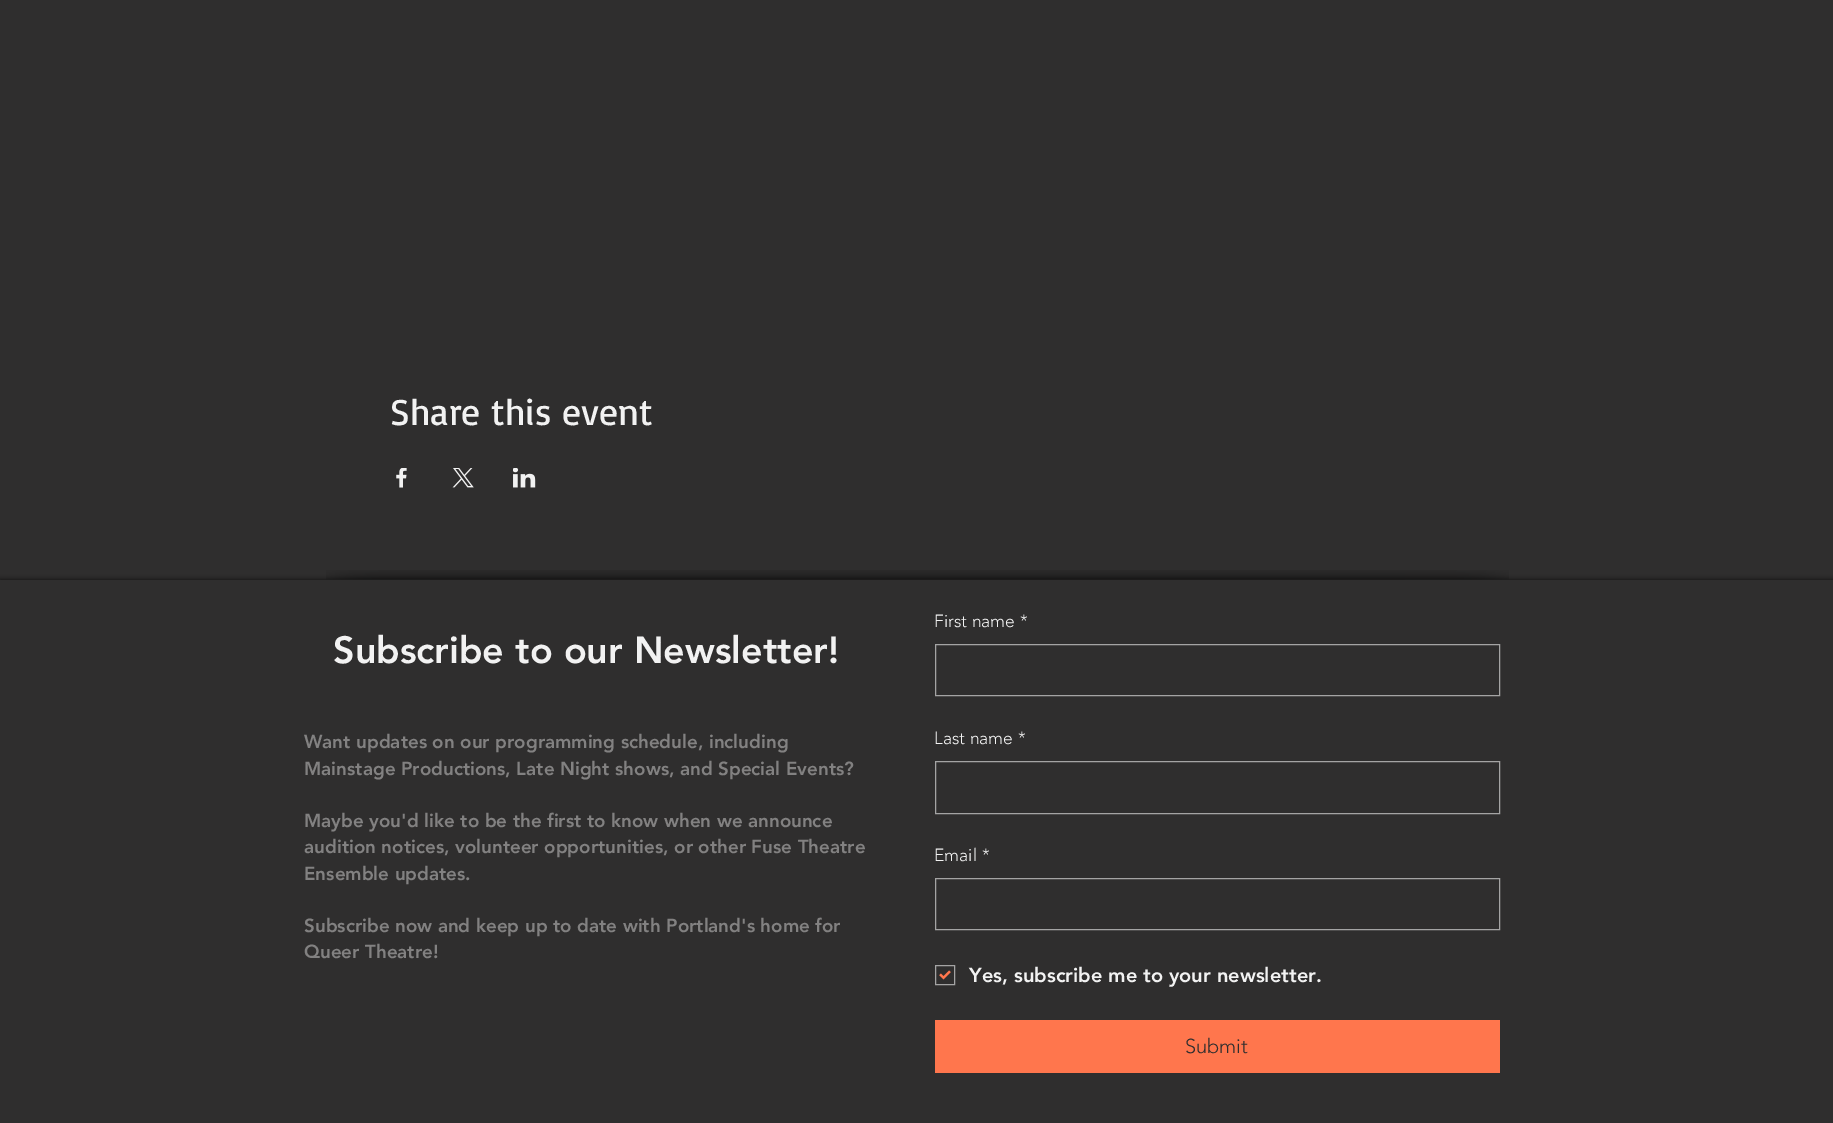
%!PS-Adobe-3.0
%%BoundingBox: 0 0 1833 1123
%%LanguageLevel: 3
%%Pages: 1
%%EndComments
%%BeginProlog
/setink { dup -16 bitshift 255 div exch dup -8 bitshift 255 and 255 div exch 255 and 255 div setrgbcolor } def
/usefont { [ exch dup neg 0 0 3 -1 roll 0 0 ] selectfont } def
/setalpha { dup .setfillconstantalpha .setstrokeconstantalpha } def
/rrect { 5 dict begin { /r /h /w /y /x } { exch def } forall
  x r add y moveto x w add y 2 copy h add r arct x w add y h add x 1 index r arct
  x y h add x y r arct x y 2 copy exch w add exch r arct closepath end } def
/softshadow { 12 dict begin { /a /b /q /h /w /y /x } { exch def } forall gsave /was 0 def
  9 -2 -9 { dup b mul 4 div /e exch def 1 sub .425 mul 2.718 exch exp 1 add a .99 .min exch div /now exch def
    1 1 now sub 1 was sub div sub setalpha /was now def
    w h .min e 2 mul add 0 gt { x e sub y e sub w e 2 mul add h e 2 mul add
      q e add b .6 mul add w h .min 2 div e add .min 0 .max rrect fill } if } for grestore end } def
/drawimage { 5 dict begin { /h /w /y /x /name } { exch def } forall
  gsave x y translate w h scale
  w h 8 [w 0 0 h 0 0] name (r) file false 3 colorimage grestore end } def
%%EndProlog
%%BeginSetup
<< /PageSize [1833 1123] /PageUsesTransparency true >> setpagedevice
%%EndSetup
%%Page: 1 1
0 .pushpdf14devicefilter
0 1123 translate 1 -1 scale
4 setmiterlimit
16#2F2E2E setink
0 0 1833 1123 rectfill
/Basic-Regular 37.5 usefont
16#F2F2F2 setink
390 425 moveto (Share this event) show
(img1.raw) 396 468 11 20 drawimage
(img2.raw) 452 468 22 20 drawimage
(img3.raw) 513 468 23 20 drawimage
gsave
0 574 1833 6 rectclip
16#000000 setink
0 580 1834 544 0 3 0.7 softshadow
grestore
(img4.raw) 326 570 104 10 drawimage
(img5.raw) 430 570 975 10 drawimage
(img6.raw) 1405 570 104 10 drawimage
/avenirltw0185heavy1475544-Black 37.5 usefont
333 663 moveto (Subscribe to our Newsletter!) show
/avenirltw0185heavy1475544-Black 18.75 usefont
16#828181 setink
[
    [(Want updates on our programming schedule, including) 304 748]
    [(Mainstage Productions, Late Night shows, and Special Events?) 304 775]
    [(Maybe you'd like to be the first to know when we announce) 304 827]
    [(audition notices, volunteer opportunities, or other Fuse Theatre) 304 853]
    [(Ensemble updates.) 304 880]
    [(Subscribe now and keep up to date with Portland's home for) 304 932]
    [(Queer Theatre!) 304 958]
] { aload pop moveto show } forall
/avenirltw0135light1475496-Light 17.5 usefont
16#F2F2F2 setink
934 627 moveto (First name) show
1020 627 moveto (*) show
16#A4A4A4 setink
935.5 644.5 564 51 rectstroke
16#F2F2F2 setink
934 744 moveto (Last name) show
1018 744 moveto (*) show
16#A4A4A4 setink
935.5 761.5 564 52 rectstroke
16#F2F2F2 setink
934 861 moveto (Email) show
982 861 moveto (*) show
16#A4A4A4 setink
935.5 878.5 564 51 rectstroke
935.5 965.5 19 19 rectstroke
(img7.raw) 939 970 12 10 drawimage
/avenirltw0185heavy1475544-Black 20 usefont
16#F2F2F2 setink
969 982 moveto (Yes, subscribe me to your newsletter.) show
16#FF764D setink
935 1020 565 53 rectfill
/avenirltw0135light1475496-Light 20 usefont
16#2F2E2E setink
1185 1053 moveto (Submit) show
.poppdf14devicefilter showpage
%%EOF
